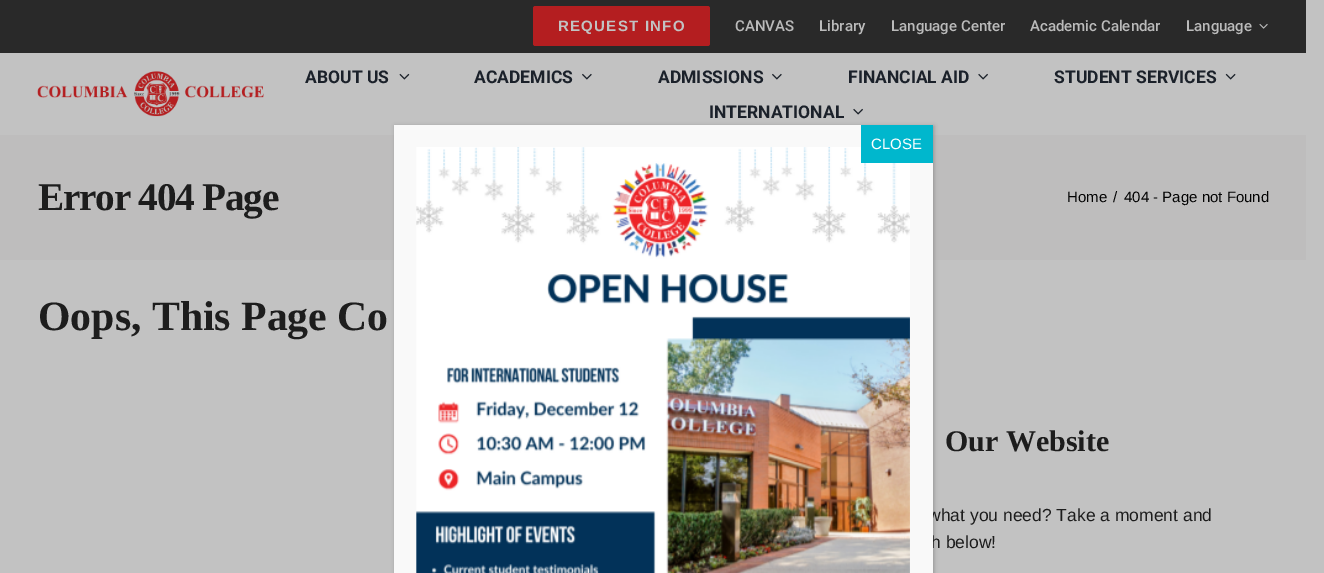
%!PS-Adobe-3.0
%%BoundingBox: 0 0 1324 573
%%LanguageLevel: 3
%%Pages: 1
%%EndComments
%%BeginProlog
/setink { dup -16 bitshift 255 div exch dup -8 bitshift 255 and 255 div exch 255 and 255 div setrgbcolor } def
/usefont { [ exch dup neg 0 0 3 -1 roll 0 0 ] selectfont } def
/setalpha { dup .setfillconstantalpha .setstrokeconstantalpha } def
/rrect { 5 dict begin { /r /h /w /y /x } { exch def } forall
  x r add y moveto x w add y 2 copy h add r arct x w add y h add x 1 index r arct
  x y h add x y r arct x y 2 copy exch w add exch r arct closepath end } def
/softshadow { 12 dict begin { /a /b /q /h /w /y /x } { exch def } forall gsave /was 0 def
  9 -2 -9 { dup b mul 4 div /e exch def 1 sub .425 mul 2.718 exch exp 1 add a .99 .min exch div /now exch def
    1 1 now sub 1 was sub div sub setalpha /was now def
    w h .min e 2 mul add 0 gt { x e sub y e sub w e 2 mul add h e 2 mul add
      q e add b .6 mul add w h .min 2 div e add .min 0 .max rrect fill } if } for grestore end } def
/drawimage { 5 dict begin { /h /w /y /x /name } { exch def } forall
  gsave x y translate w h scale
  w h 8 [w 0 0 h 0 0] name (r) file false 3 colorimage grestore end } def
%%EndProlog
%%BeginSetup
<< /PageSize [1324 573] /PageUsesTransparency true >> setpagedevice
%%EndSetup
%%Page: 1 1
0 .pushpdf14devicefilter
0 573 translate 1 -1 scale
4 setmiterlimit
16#C2C2C2 setink
0 0 1324 573 rectfill
16#292929 setink
0 0 1306 53 rectfill
16#B41E20 setink
533 6 177 40 2.5 rrect fill
/LiberationSans-Bold 15 usefont
16#C2C2C2 setink
558 31 moveto 1.25 0 (REQUEST INFO) ashow
/Roboto-Medium 15 usefont
16#BBBBBB setink
[
    [(CANVAS) 735 31]
    [(Library) 819 31]
    [(Language Center) 891 31]
    [(Academic Calendar) 1030 31]
    [(Language) 1186 31]
] { aload pop moveto show } forall
(img1.raw) 1259 23 9 6 drawimage
(img2.raw) 37 71 227 46 drawimage
/Roboto-Bold 17.5 usefont
16#1B212A setink
305 83 moveto (ABOUT US) show
(img3.raw) 399 73 11 7 drawimage
474 83 moveto (ACADEMICS) show
(img4.raw) 582 73 10 7 drawimage
658 83 moveto (ADMISSIONS) show
(img4.raw) 772 73 10 7 drawimage
848 83 moveto (FINANCIAL AID) show
(img5.raw) 978 73 10 7 drawimage
1054 83 moveto (STUDENT SERVICES) show
(img6.raw) 1225 73 11 7 drawimage
709 118 moveto (INTERNATIONAL) show
(img5.raw) 853 108 10 7 drawimage
16#BEBDBD setink
0 135 1306 125 rectfill
/LiberationSerif-Bold 39.25 usefont
16#1D1D1D setink
38 210 moveto -1.25 0 (Error 404 Page) ashow
/LiberationSans-Regular 15 usefont
16#030303 setink
[
    [(Home) 1067 202]
    [(/) 1113 202]
    [(404 - Page not Found) 1124 202]
] { aload pop moveto show } forall
/LiberationSerif-Bold 41.75 usefont
16#1D1D1D setink
38 330 moveto (Oops, This Page Co) show
/LiberationSerif-Bold 30 usefont
945 451 moveto (Our Website) show
/LiberationSans-Regular 17.5 usefont
928 521 moveto (what you need? Take a moment and) show
931 548 moveto (h below!) show
16#020202 setink
395 126 539 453 0 2 0.23 softshadow
16#F9F9F9 setink
394 125 539 448 rectfill
(img7.raw) 416 147 494 426 drawimage
16#00B7CD setink
861 125 72 38 rectfill
/LiberationSans-Regular 15 usefont
16#FFFFFF setink
871 149 moveto (CLOSE) show
.poppdf14devicefilter showpage
%%EOF
